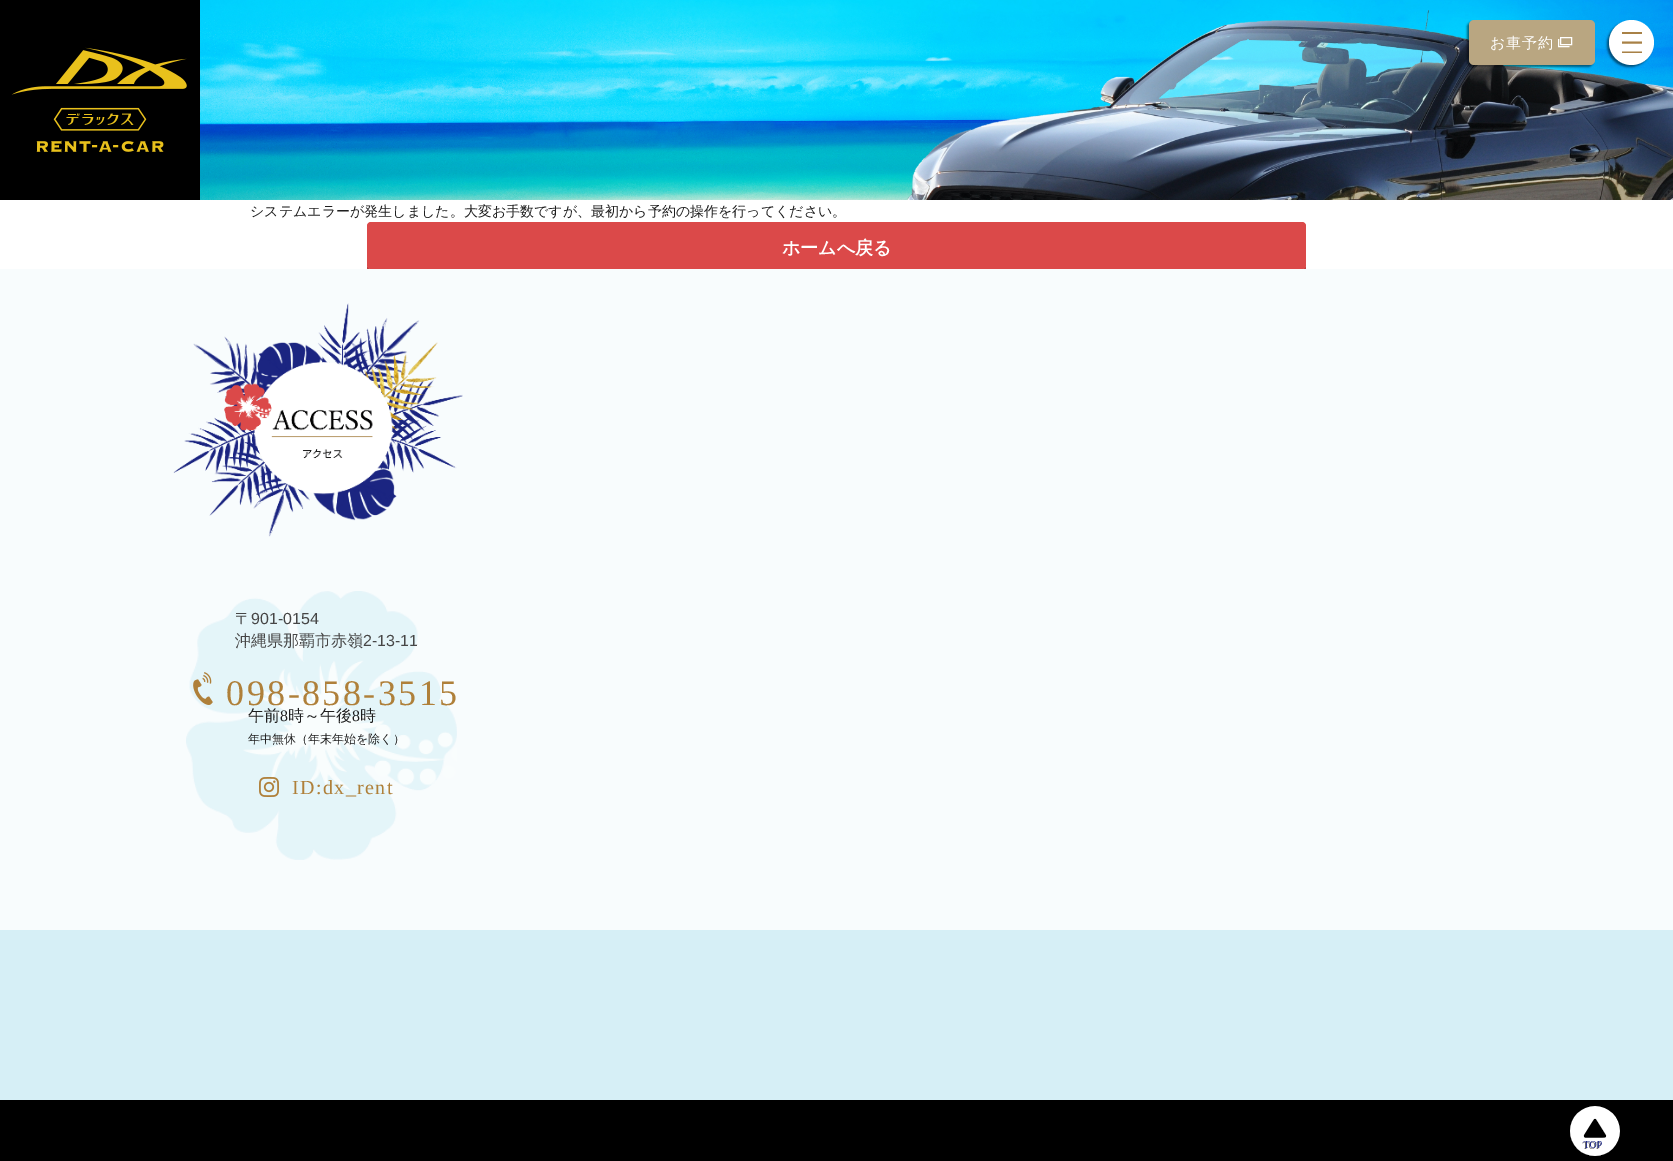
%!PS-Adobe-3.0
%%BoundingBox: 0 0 1673 1161
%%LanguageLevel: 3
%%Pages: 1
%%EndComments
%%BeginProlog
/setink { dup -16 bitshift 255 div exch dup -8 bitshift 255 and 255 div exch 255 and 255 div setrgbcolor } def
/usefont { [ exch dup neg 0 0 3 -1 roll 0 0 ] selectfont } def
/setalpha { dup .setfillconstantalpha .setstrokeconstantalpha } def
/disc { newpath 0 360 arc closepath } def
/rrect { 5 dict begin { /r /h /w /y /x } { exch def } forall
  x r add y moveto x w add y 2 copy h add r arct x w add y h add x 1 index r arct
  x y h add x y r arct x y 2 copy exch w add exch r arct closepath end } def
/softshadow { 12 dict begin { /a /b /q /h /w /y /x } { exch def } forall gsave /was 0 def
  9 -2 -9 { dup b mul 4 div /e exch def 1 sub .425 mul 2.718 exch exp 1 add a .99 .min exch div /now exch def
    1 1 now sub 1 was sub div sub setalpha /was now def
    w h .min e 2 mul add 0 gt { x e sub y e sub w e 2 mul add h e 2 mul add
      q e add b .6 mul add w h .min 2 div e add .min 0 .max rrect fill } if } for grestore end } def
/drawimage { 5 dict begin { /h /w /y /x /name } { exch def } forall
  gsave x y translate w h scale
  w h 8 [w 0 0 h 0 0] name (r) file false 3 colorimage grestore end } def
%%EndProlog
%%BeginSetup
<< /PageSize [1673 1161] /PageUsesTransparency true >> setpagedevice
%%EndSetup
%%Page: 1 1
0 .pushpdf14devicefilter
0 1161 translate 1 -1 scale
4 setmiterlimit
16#FFFFFF setink
0 0 1673 1161 rectfill
(img1.raw) 200 0 1473 200 drawimage
(img2.raw) 0 0 200 200 drawimage
16#000000 setink
1467 22 126 45 5 1 0.5 softshadow
16#B9A681 setink
1469 20 126 45 5 rrect fill
/WenQuanYiZenHei-Medium 15 usefont
16#FFFFFF setink
1490 48 moveto 1 0 (お車予約) ashow
1560.5 37.5 11 7 rectstroke
1558.5 39 moveto 1558.5 46.5 lineto 1569.5 46.5 lineto stroke
16#000000 setink
1607 22 45 45 22.5 1 0.5 softshadow
16#FFFFFF setink
1631.5 42.5 22.5 disc fill
16#A88146 setink
1622 32 20 2 rectfill
2 setlinewidth
1642 42.5 moveto 1622 42.5 lineto stroke
gsave
1622 32 20 21 rectclip
1642 52.5 moveto 1622 52.5 lineto stroke
grestore
/WenQuanYiZenHei-Medium 14 usefont
16#1F1F1F setink
250 216 moveto (システムエラーが発生しました。大変お手数ですが、最初から予約の操作を行ってください。) show
16#BB4141 setink
367 265 moveto 367 270 lineto 367 272 369 274 371 274 curveto 1302 274 lineto 1304 274 1306 272 1306 270 curveto 1306 265 lineto 1306 267 1304 269 1302 269 curveto 371 269 lineto 369 269 367 267 367 265 curveto closepath fill
16#DB4949 setink
367 222 939 47 4 rrect fill
/WenQuanYiZenHei-Bold 18 usefont
16#FFFFFF setink
782 254 moveto (ホームへ戻る) show
16#D6EFF6 setink
0 930 1673 170 rectfill
16#F8FCFD setink
0 269 1673 661 rectfill
(img3.raw) 173 303 290 234 drawimage
(img4.raw) 186 591 271 269 drawimage
/WenQuanYiZenHei-Medium 16 usefont
16#464646 setink
235 624 moveto (〒) show
/LiberationSans-Regular 16 usefont
251 624 moveto (901-0154) show
/WenQuanYiZenHei-Medium 16 usefont
235 646 moveto (沖縄県那覇市赤嶺) show
/LiberationSans-Regular 16 usefont
363 646 moveto (2-13-11) show
(img5.raw) 193 672 20 33 drawimage
/LiberationSerif-Regular 36 usefont
16#AF803A setink
226 705 moveto 2.5 0 (098-858-3515) ashow
/WenQuanYiZenHei-Medium 16 usefont
16#1F1F1F setink
248 721 moveto (午前) show
/LiberationSerif-Regular 16 usefont
280 721 moveto (8) show
/WenQuanYiZenHei-Medium 16 usefont
288 721 moveto (時～午後) show
/LiberationSerif-Regular 16 usefont
352 721 moveto (8) show
/WenQuanYiZenHei-Medium 16 usefont
360 721 moveto (時) show
/WenQuanYiZenHei-Medium 12 usefont
248 743 moveto (年中無休（年末年始を除く）) show
(img6.raw) 259 777 20 20 drawimage
/LiberationSerif-Regular 20 usefont
16#AF803A setink
292 794 moveto 1.4 0 (ID:dx_rent) ashow
16#000000 setink
0 1100 1673 61 rectfill
(img7.raw) 1570 1106 50 50 drawimage
.poppdf14devicefilter showpage
%%EOF
